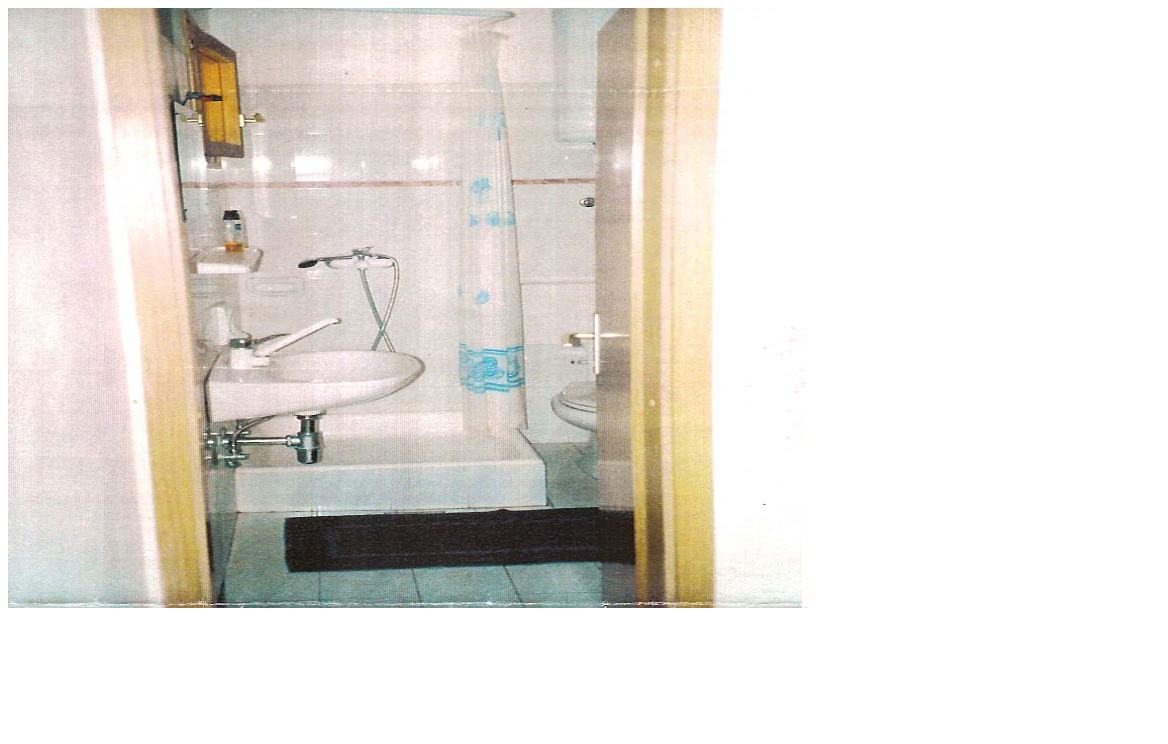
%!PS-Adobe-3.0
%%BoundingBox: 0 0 1168 744
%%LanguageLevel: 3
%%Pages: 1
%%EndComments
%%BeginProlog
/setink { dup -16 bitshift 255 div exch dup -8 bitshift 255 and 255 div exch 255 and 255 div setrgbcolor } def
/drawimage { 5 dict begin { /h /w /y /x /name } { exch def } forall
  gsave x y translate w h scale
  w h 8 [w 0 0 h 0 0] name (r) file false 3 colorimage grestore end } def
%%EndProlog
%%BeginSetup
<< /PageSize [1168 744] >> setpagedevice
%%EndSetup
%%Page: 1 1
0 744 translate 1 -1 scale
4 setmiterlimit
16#FFFFFF setink
0 0 1168 744 rectfill
(img1.raw) 8 8 800 600 drawimage
showpage
%%EOF
